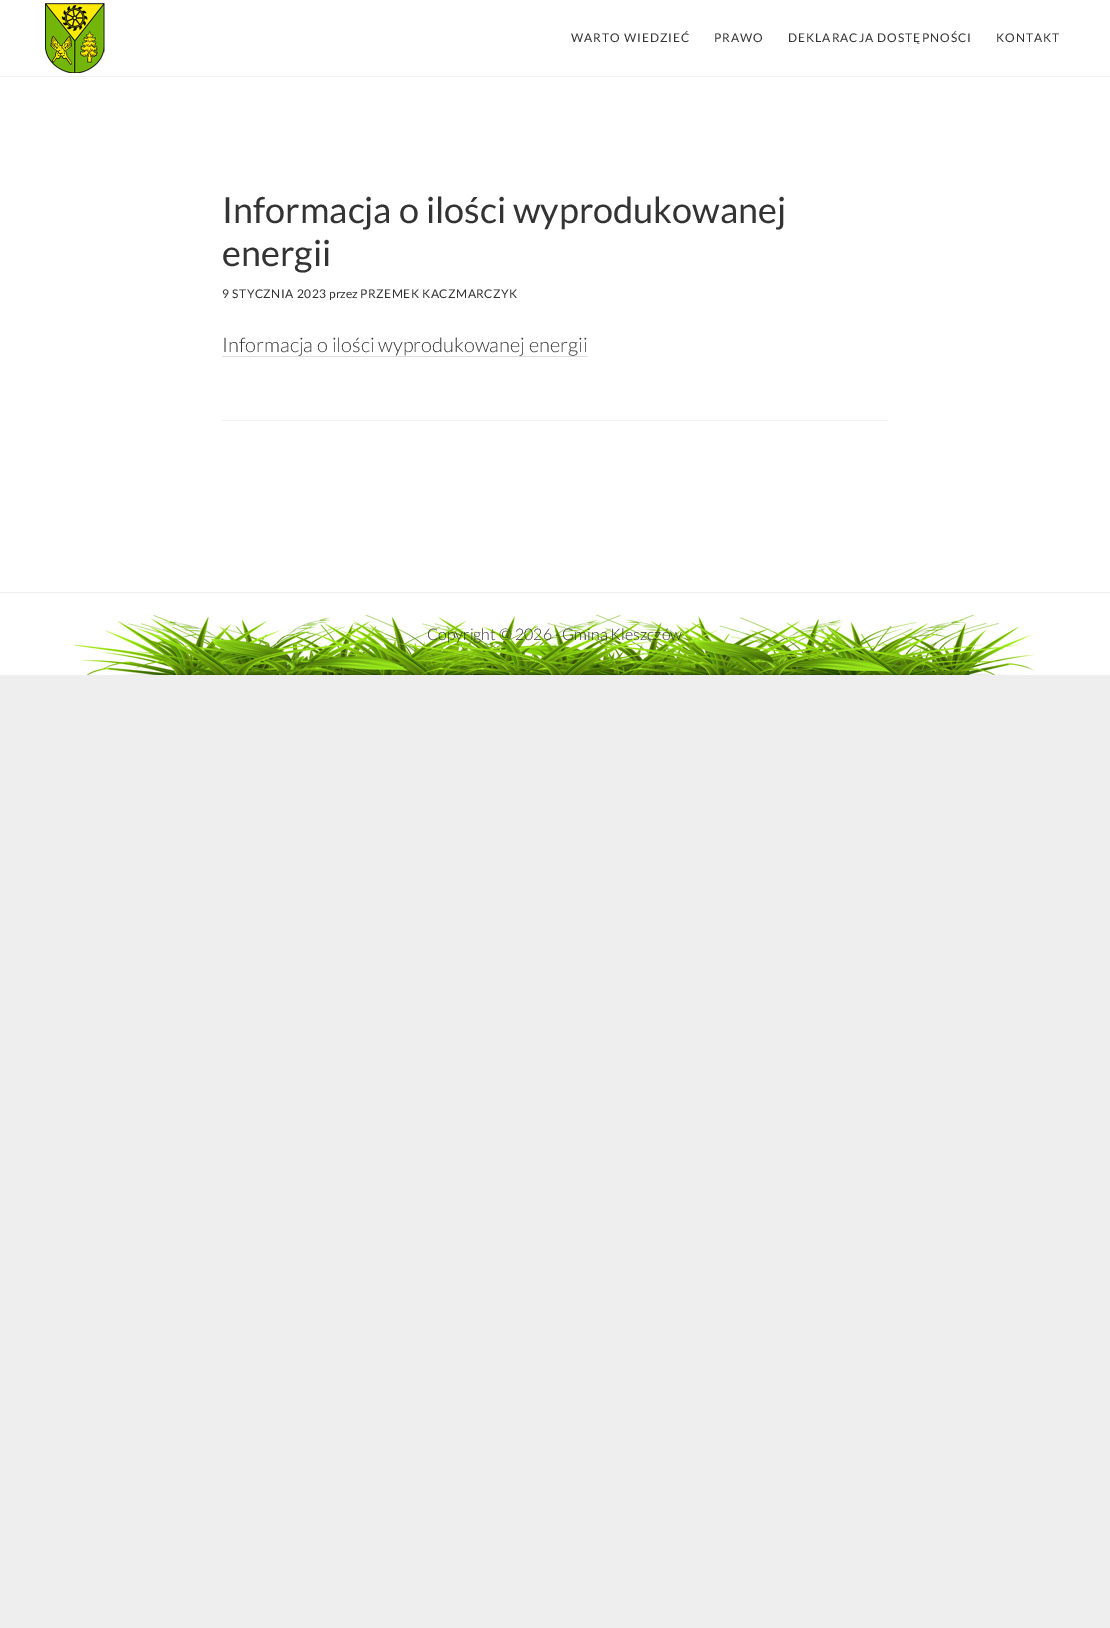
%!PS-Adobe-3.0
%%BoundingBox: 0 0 1110 1628
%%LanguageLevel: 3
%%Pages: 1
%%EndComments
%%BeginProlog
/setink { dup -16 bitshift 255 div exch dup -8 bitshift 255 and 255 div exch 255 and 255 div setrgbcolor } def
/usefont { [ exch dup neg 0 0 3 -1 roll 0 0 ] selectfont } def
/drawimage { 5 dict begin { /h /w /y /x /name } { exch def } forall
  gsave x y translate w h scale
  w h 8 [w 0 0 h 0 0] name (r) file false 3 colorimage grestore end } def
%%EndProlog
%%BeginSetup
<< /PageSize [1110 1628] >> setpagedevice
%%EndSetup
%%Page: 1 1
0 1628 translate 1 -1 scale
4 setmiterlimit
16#EEEEEE setink
0 0 1110 1628 rectfill
16#FFFFFF setink
0 0 1110 675 rectfill
16#EEEEEE setink
0 76 1110 1 rectfill
(img1.raw) 45 3 60 70 drawimage
/Lato-Regular 12 usefont
16#333333 setink
571 42 moveto 1 0 (WARTO WIEDZIEĆ) ashow
714 42 moveto 1 0 (PRAWO) ashow
788 42 moveto 1 0 (DEKLARACJA DOSTĘPNOŚCI) ashow
996 42 moveto 1 0 (KONTAKT) ashow
16#EEEEEE setink
222 420 666 1 rectfill
/Lato-Regular 36 usefont
16#333333 setink
222 223 moveto (Informacja o ilości wyprodukowanej) show
222 266 moveto (energii) show
/Lato-Regular 12 usefont
222 298 moveto 0.5 0 (9 STYCZNIA 2023) ashow
329 298 moveto (przez) show
360 298 moveto 0.5 0 (PRZEMEK KACZMARCZYK) ashow
/Lato-Light 20 usefont
222 352 moveto (Informacja o ilości wyprodukowanej energii) show
16#DDDDDD setink
222 356 366 1 rectfill
(img2.raw) 75 610 960 65 drawimage
16#EEEEEE setink
0 592 1110 1 rectfill
/Lato-Light 16 usefont
16#333333 setink
427 640 moveto (Copyright © 2026 · Gmina Kleszczów) show
showpage
%%EOF
